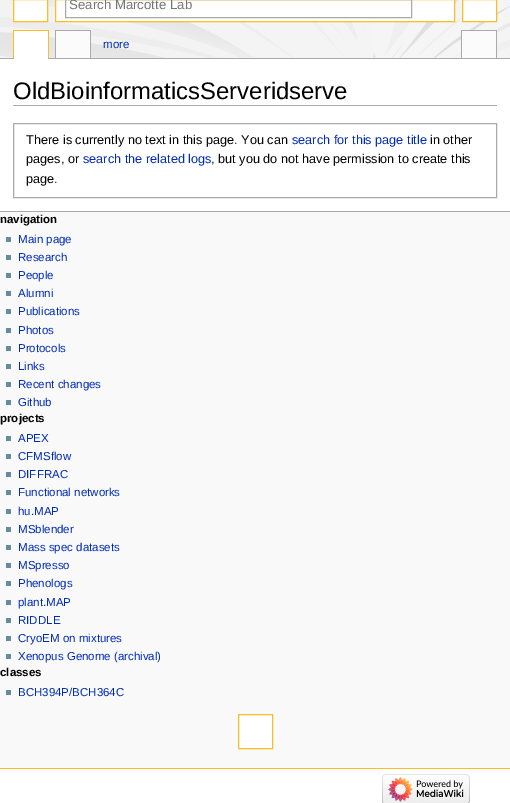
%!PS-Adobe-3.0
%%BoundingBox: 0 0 510 803
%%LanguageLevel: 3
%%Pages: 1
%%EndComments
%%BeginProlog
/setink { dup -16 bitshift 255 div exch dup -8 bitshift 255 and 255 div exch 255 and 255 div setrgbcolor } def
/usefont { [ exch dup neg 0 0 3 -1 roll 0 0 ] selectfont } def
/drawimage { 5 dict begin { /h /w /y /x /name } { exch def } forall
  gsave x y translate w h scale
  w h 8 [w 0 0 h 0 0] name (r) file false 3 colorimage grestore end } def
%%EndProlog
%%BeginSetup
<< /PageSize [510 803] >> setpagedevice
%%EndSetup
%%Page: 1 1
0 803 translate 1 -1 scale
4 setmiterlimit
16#F9F9F9 setink
0 0 510 803 rectfill
(img1.raw) 0 0 510 58 drawimage
16#FFFFFF setink
13.5 -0.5 moveto 47.5 -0.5 lineto 47.5 21.5 lineto 13.5 21.5 lineto closepath gsave fill grestore
16#FABD23 setink
stroke
16#FFFFFF setink
462.5 -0.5 moveto 496.5 -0.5 lineto 496.5 21.5 lineto 462.5 21.5 lineto closepath gsave fill grestore
16#FABD23 setink
stroke
16#FFFFFF setink
55.5 -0.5 moveto 454.5 -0.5 lineto 454.5 21.5 lineto 55.5 21.5 lineto closepath gsave fill grestore
16#FABD23 setink
stroke
16#AAAAAA setink
65.5 -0.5 346 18 rectstroke
/LiberationSans-Regular 13.25 usefont
16#757575 setink
69 9 moveto (Search Marcotte Lab) show
/LiberationSans-Bold 11.5 usefont
16#000000 setink
0 223 moveto (navigation) show
16#638C9C setink
6 237 5 5 rectfill
/LiberationSans-Regular 11.5 usefont
16#002BB8 setink
18 243 moveto (Main page) show
16#638C9C setink
6 255 5 5 rectfill
16#002BB8 setink
18 261 moveto (Research) show
16#638C9C setink
6 273 5 5 rectfill
16#002BB8 setink
18 279 moveto (People) show
16#638C9C setink
6 291 5 5 rectfill
16#002BB8 setink
18 297 moveto (Alumni) show
16#638C9C setink
6 309 5 5 rectfill
16#002BB8 setink
18 315 moveto (Publications) show
16#638C9C setink
6 328 5 5 rectfill
16#002BB8 setink
18 334 moveto (Photos) show
16#638C9C setink
6 346 5 5 rectfill
16#002BB8 setink
18 352 moveto (Protocols) show
16#638C9C setink
6 364 5 5 rectfill
16#002BB8 setink
18 370 moveto (Links) show
16#638C9C setink
6 382 5 5 rectfill
16#002BB8 setink
18 388 moveto (Recent changes) show
16#638C9C setink
6 400 5 5 rectfill
16#002BB8 setink
18 406 moveto (Github) show
/LiberationSans-Bold 11.5 usefont
16#000000 setink
0 422 moveto (projects) show
16#638C9C setink
6 436 5 5 rectfill
/LiberationSans-Regular 11.5 usefont
16#002BB8 setink
18 442 moveto (APEX) show
16#638C9C setink
6 454 5 5 rectfill
16#002BB8 setink
18 460 moveto (CFMSflow) show
16#638C9C setink
6 472 5 5 rectfill
16#002BB8 setink
18 478 moveto (DIFFRAC) show
16#638C9C setink
6 490 5 5 rectfill
16#002BB8 setink
18 496 moveto (Functional networks) show
16#638C9C setink
6 509 5 5 rectfill
16#002BB8 setink
18 515 moveto (hu.MAP) show
16#638C9C setink
6 527 5 5 rectfill
16#002BB8 setink
18 533 moveto (MSblender) show
16#638C9C setink
6 545 5 5 rectfill
16#002BB8 setink
18 551 moveto (Mass spec datasets) show
16#638C9C setink
6 563 5 5 rectfill
16#002BB8 setink
18 569 moveto (MSpresso) show
16#638C9C setink
6 581 5 5 rectfill
16#002BB8 setink
18 587 moveto (Phenologs) show
16#638C9C setink
6 600 5 5 rectfill
16#002BB8 setink
18 606 moveto (plant.MAP) show
16#638C9C setink
6 618 5 5 rectfill
16#002BB8 setink
18 624 moveto (RIDDLE) show
16#638C9C setink
6 636 5 5 rectfill
16#002BB8 setink
18 642 moveto (CryoEM on mixtures) show
16#638C9C setink
6 654 5 5 rectfill
16#002BB8 setink
18 660 moveto (Xenopus Genome \(archival\)) show
/LiberationSans-Bold 11.5 usefont
16#000000 setink
0 676 moveto (classes) show
16#638C9C setink
6 690 5 5 rectfill
/LiberationSans-Regular 11.5 usefont
16#002BB8 setink
18 696 moveto (BCH394P/BCH364C) show
[
    [13 30 36 1 16#FABD23]
    [48 30 1 29 16#FABD23]
    [13 30 1 29 16#FABD23]
    [55 30 36 1 16#AAAAAA]
    [90 30 1 29 16#AAAAAA]
    [55 30 1 29 16#AAAAAA]
    [461 30 36 1 16#AAAAAA]
    [496 30 1 29 16#AAAAAA]
    [461 30 1 29 16#AAAAAA]
    [0 58 510 1 16#AAAAAA]
    [14 31 34 28 16#FFFFFF]
    [56 31 34 27 16#FBFBFB]
] { aload pop setink rectfill } forall
16#002BB8 setink
103 48 moveto (more) show
16#FBFBFB setink
462 31 34 27 rectfill
16#FFFFFF setink
238.5 714.5 moveto 272.5 714.5 lineto 272.5 748.5 lineto 238.5 748.5 lineto closepath gsave fill grestore
16#FABD23 setink
stroke
[
    [0 59 510 152 16#FFFFFF]
    [0 211 510 1 16#AAAAAA]
    [13 105 484 1 16#AAAAAA]
] { aload pop setink rectfill } forall
/LiberationSans-Regular 23.9 usefont
16#000000 setink
13 99 moveto (OldBioinformaticsServeridserve) show
16#AAAAAA setink
13.5 123.5 483 74 rectstroke
/LiberationSans-Regular 12.7 usefont
16#000000 setink
26 144 moveto (There is currently no text in this page. You can) show
16#002BB8 setink
292 144 moveto (search for this page title) show
16#000000 setink
430 144 moveto (in other) show
26 163 moveto (pages, or) show
16#002BB8 setink
83 163 moveto (search the related logs) show
16#000000 setink
211 163 moveto (, but you do not have permission to create this) show
26 183 moveto (page.) show
16#FFFFFF setink
0 769 510 34 rectfill
16#FABD23 setink
0 768 510 1 rectfill
(img2.raw) 382 774 88 29 drawimage
showpage
%%EOF
